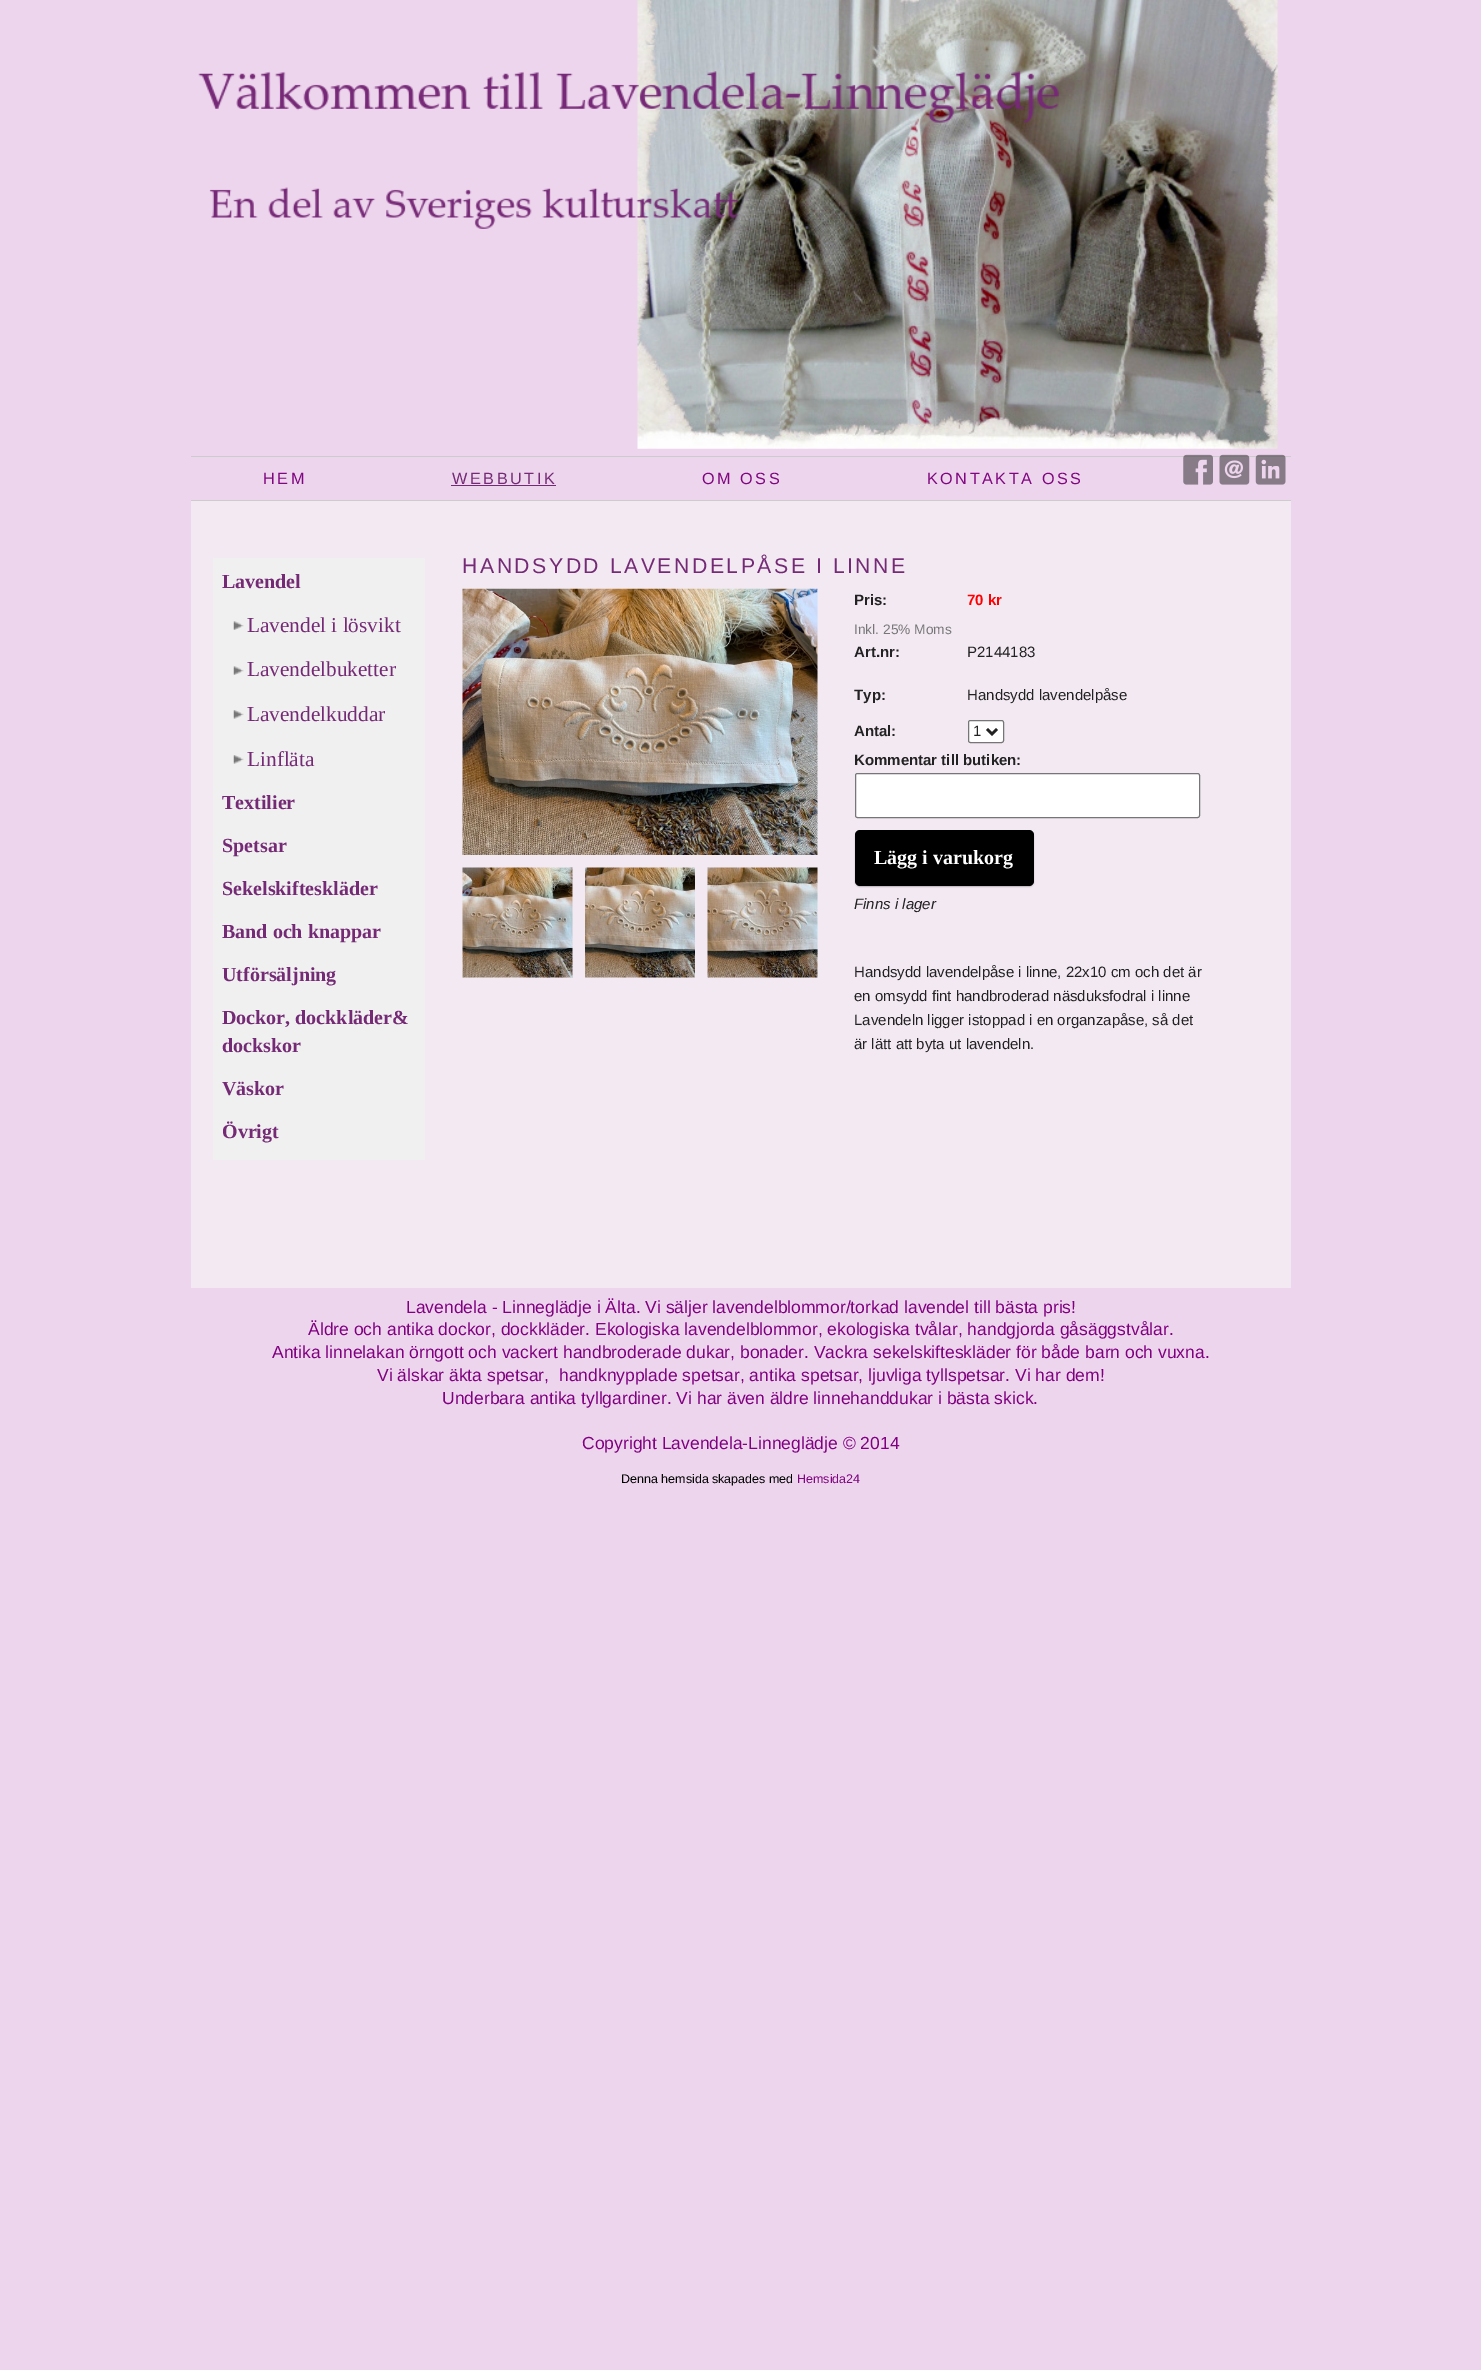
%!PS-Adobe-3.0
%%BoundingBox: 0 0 1481 2370
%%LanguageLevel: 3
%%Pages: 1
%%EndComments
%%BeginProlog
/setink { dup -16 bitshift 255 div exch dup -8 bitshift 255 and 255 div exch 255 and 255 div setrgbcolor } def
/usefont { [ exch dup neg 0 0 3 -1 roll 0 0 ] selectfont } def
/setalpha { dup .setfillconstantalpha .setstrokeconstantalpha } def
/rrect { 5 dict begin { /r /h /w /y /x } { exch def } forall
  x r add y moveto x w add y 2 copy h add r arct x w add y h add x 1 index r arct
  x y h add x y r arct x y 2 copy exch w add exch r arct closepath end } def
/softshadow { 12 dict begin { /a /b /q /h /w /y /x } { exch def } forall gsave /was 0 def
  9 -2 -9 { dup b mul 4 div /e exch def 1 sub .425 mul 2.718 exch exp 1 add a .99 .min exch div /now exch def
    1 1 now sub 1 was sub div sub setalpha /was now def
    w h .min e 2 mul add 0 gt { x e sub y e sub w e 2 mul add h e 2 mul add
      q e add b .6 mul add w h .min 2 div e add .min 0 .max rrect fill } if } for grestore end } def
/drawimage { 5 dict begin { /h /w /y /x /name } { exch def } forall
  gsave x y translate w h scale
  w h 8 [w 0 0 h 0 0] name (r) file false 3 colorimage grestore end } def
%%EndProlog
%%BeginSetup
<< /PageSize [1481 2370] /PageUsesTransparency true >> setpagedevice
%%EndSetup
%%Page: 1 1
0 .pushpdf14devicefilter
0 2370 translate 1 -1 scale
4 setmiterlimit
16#EDD5ED setink
0 0 1481 2370 rectfill
(img1.raw) 209 0 1069 449 drawimage
(img2.raw) 198 71 861 52 drawimage
16#CCCCCC setink
191 456 1100 1 rectfill
(img3.raw) 1183 454 30 31 drawimage
(img4.raw) 1219 454 31 31 drawimage
(img5.raw) 1255 454 31 31 drawimage
191 500 1100 1 rectfill
/LiberationSans-Regular 16.25 usefont
16#800780 setink
263 484 moveto 2.5 0 (HEM) ashow
16#752A75 setink
452 484 moveto 2.5 0 (WEBBUTIK) ashow
451 485 105 1 rectfill
16#800780 setink
702 484 moveto 2.5 0 (OM OSS) ashow
927 484 moveto 2.5 0 (KONTAKTA OSS) ashow
16#F2E9F2 setink
191 501 1100 787 rectfill
16#F0F0F0 setink
213 558 212 602 rectfill
/LiberationSerif-Bold 20 usefont
16#752A75 setink
222 588 moveto (Lavendel) show
(img6.raw) 233 621 11 9 drawimage
/LiberationSerif-Regular 21.25 usefont
247 632 moveto (Lavendel i lösvikt) show
(img6.raw) 233 666 11 9 drawimage
247 676 moveto (Lavendelbuketter) show
(img7.raw) 233 710 11 9 drawimage
247 721 moveto (Lavendelkuddar) show
(img7.raw) 233 755 11 9 drawimage
247 766 moveto (Linfläta) show
/LiberationSerif-Bold 20 usefont
[
    [(Textilier) 222 809]
    [(Spetsar) 222 852]
    [(Sekelskifteskläder) 222 895]
    [(Band och knappar) 222 938]
    [(Utförsäljning) 222 981]
    [(Dockor, dockkläder&) 222 1024]
    [(dockskor) 222 1052]
    [(Väskor) 222 1095]
    [(Övrigt) 222 1138]
] { aload pop moveto show } forall
/LiberationSans-Regular 21.25 usefont
462 573 moveto 2.5 0 (HANDSYDD LAVENDELPÅSE I LINNE) ashow
(img8.raw) 462 588 356 267 drawimage
(img9.raw) 462 867 111 111 drawimage
(img10.raw) 585 867 110 111 drawimage
(img11.raw) 707 867 111 111 drawimage
/LiberationSans-Bold 15 usefont
16#222222 setink
854 605 moveto (Pris:) show
16#FF0000 setink
967 605 moveto (70 kr) show
/LiberationSans-Regular 13.75 usefont
16#777777 setink
854 634 moveto (Inkl. 25% Moms) show
/LiberationSans-Bold 15 usefont
16#222222 setink
854 657 moveto (Art.nr:) show
/LiberationSans-Regular 15 usefont
967 657 moveto (P2144183) show
/LiberationSans-Bold 15 usefont
854 700 moveto (Typ:) show
/LiberationSans-Regular 15 usefont
967 700 moveto (Handsydd lavendelpåse) show
/LiberationSans-Bold 15 usefont
854 736 moveto (Antal:) show
16#FFFFFF setink
968.5 720.5 35 22 2 rrect gsave fill grestore
16#767676 setink
stroke
16#222222 setink
2.5 setlinewidth
987 729 moveto 992 734 lineto 997 729 lineto stroke
/LiberationSans-Regular 15 usefont
973 736 moveto (1) show
/LiberationSans-Bold 15 usefont
854 765 moveto (Kommentar till butiken:) show
16#FFFFFF setink
855.5 773.5 344 44 2 rrect gsave fill grestore
16#767676 setink
1 setlinewidth
stroke
16#000000 setink
856 833 177 53 4 1 0.6 softshadow
855 830 179 56 5 rrect fill
/LiberationSerif-Bold 20 usefont
16#FFFFFF setink
874 864 moveto (Lägg i varukorg) show
/LiberationSans-Italic 15 usefont
16#222222 setink
854 909 moveto (Finns i lager) show
/LiberationSans-Regular 15 usefont
[
    [(Handsydd lavendelpåse i linne, 22x10 cm och det är) 854 977]
    [(en omsydd fint handbroderad näsduksfodral i linne) 854 1001]
    [(Lavendeln ligger istoppad i en organzapåse, så det) 854 1025]
    [(är lätt att byta ut lavendeln.) 854 1049]
] { aload pop moveto show } forall
/LiberationSans-Regular 17.5 usefont
16#800080 setink
[
    [(Lavendela - Linneglädje i Älta. Vi säljer lavendelblommor/torkad lavendel till bästa pris!) 406 1313]
    [(Äldre och antika dockor, dockkläder. Ekologiska lavendelblommor, ekologiska tvålar, handgjorda gåsäggstvålar.) 308 1335]
    [(Antika linnelakan örngott och vackert handbroderade dukar, bonader. Vackra sekelskifteskläder för både barn och vuxna.) 272 1358]
    [(Vi älskar äkta spetsar,  handknypplade spetsar, antika spetsar, ljuvliga tyllspetsar. Vi har dem!) 377 1381]
    [(Underbara antika tyllgardiner. Vi har även äldre linnehanddukar i bästa skick.) 442 1404]
    [(Copyright Lavendela-Linneglädje © 2014) 582 1449]
] { aload pop moveto show } forall
/LiberationSans-Regular 12.5 usefont
16#000000 setink
621 1483 moveto (Denna hemsida skapades med) show
16#800780 setink
797 1483 moveto (Hemsida24) show
.poppdf14devicefilter showpage
%%EOF
